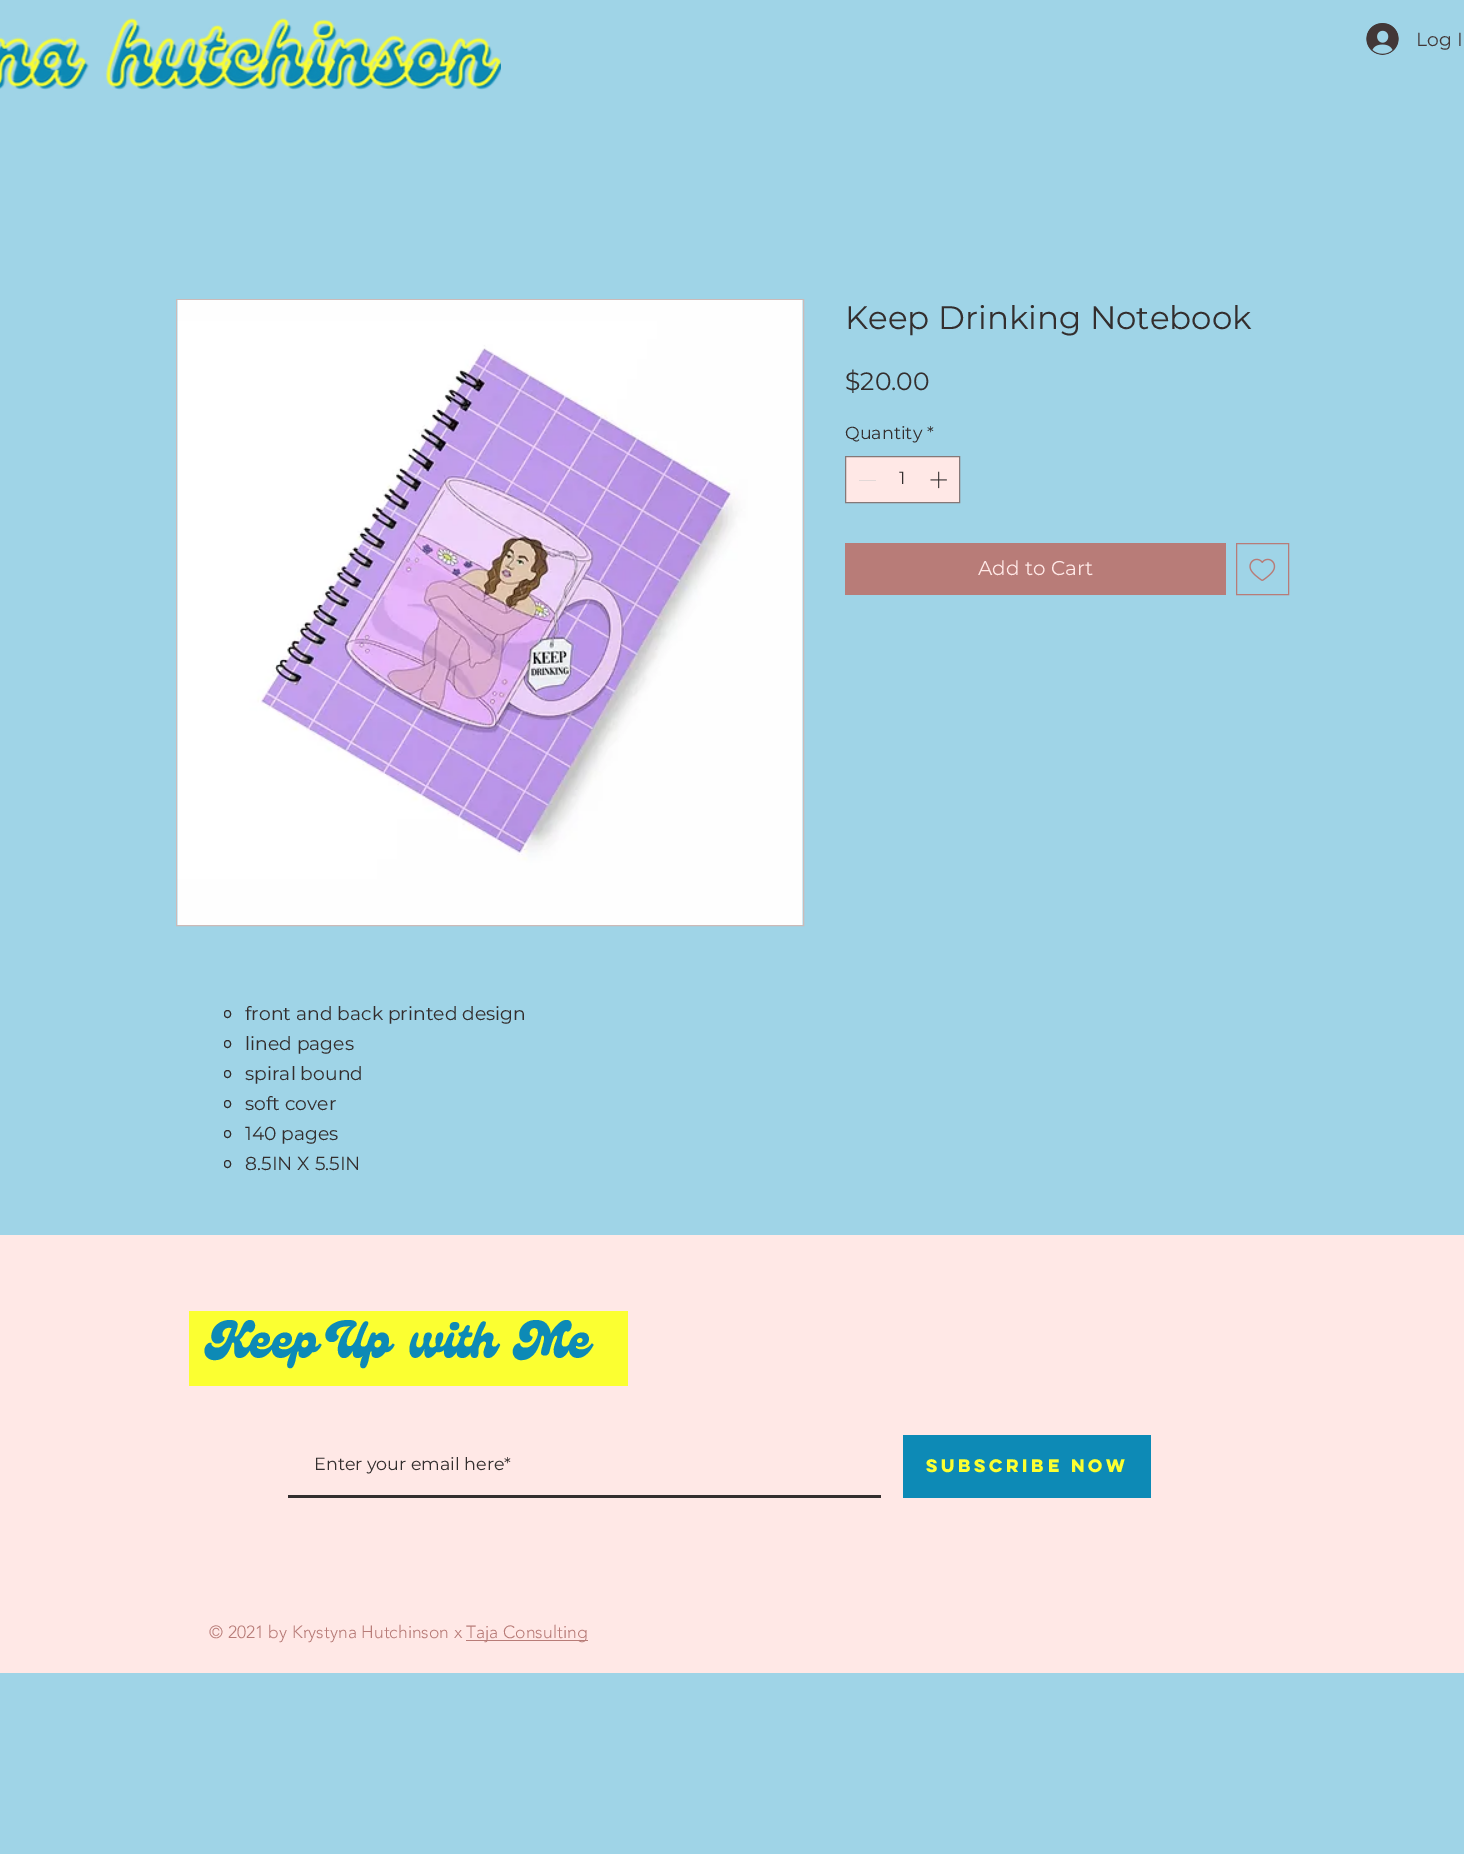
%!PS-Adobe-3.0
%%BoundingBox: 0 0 1464 1854
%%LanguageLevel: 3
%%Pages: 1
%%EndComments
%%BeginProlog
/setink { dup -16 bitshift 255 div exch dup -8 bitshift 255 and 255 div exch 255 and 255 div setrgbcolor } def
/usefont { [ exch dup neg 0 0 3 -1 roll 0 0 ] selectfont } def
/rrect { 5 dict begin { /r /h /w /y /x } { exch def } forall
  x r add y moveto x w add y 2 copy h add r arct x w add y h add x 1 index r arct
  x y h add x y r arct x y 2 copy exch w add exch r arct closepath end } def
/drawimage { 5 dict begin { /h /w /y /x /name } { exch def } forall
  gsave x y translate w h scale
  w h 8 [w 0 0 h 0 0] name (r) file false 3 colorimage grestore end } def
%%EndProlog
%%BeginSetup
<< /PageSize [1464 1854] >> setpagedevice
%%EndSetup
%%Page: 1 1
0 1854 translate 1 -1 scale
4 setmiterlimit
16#9FD4E7 setink
0 0 1464 1854 rectfill
(img1.raw) 0 18 501 72 drawimage
(img2.raw) 1366 23 33 32 drawimage
/Montserrat-Regular 18.75 usefont
16#423737 setink
1416 46 moveto (Log I) show
/Montserrat-Regular 32.5 usefont
16#332E2E setink
845 329 moveto (Keep Drinking Notebook) show
/Montserrat-Regular 25 usefont
845 390 moveto ($20.00) show
/Montserrat-Regular 17.5 usefont
845 439 moveto (Quantity) show
927 439 moveto (*) show
16#FFE8E6 setink
845.5 456.5 moveto 959.5 456.5 lineto 959.5 502.5 lineto 845.5 502.5 lineto closepath gsave fill grestore
16#857878 setink
stroke
16#E3D8D7 setink
859 480 17 1 rectfill
16#332E2E setink
899 484 moveto (1) show
(img3.raw) 930 471 17 18 drawimage
16#B87C78 setink
845 543 381 52 rectfill
/Montserrat-Regular 20 usefont
16#FFE8E6 setink
978 575 moveto (Add to Cart) show
16#B87C78 setink
1236.5 543.5 52 51 rectstroke
(img4.raw) 1249 558 27 23 drawimage
16#CCBAB8 setink
176.5 299.5 627 626 rectstroke
(img5.raw) 177 300 626 625 drawimage
16#332E2E setink
224.5 1010.5 6 7 3 rrect stroke
/Montserrat-Regular 18.75 usefont
245 1020 moveto (front and back printed design) show
224.5 1040.5 6 7 3 rrect stroke
245 1050 moveto (lined pages) show
224.5 1070.5 6 7 3 rrect stroke
245 1080 moveto (spiral bound) show
224.5 1100.5 6 7 3 rrect stroke
245 1110 moveto (soft cover) show
224.5 1130.5 6 7 3 rrect stroke
245 1140 moveto (140 pages) show
224.5 1160.5 6 7 3 rrect stroke
245 1170 moveto (8.5IN X 5.5IN) show
16#FFE8E6 setink
0 1235 1464 438 rectfill
16#FBFF31 setink
189 1311 439 75 rectfill
/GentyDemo-Regular 51.25 usefont
16#0D8AB6 setink
207 1358 moveto (Keep Up with Me) show
16#332E2E setink
288 1495 593 3 rectfill
/Montserrat-Regular 17.5 usefont
314 1470 moveto (Enter your email here*) show
16#0D8AB6 setink
903 1435 248 63 rectfill
/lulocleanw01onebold-Bold 16.25 usefont
16#FBFF31 setink
926 1472 moveto (Subscribe Now) show
/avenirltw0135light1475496-Light 17.5 usefont
16#B87C78 setink
209 1638 moveto (© 2021 by Krystyna Hutchinson x) show
466 1640 122 1 rectfill
466 1638 moveto (Taja Consulting) show
showpage
%%EOF
